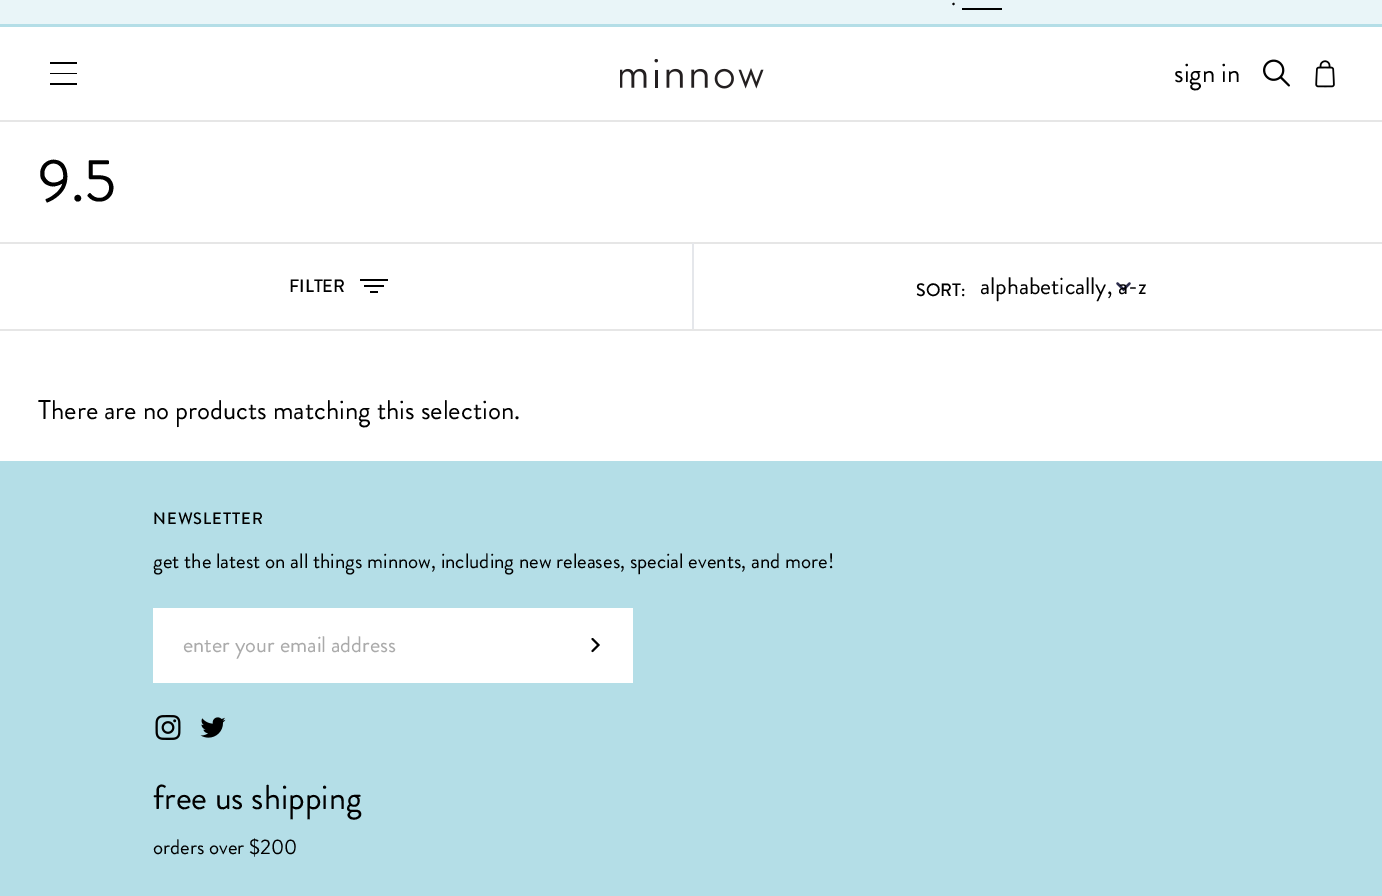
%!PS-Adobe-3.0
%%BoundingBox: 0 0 1382 896
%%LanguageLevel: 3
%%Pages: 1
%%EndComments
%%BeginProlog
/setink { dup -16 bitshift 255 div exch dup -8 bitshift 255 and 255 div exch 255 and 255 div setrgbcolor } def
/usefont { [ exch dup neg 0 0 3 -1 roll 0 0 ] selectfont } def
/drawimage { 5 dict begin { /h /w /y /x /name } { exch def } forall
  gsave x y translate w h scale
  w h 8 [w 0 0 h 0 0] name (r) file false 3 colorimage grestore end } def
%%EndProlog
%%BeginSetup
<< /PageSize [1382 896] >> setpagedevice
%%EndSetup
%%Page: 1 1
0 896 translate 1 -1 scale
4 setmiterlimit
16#FFFFFF setink
0 0 1382 896 rectfill
16#E9F5F8 setink
0 0 1382 24 rectfill
16#B4DEE7 setink
0 24 1382 3 rectfill
/BrandonGrotesque-Regular 22.5 usefont
16#000000 setink
951 5 moveto (.) show
[
    [962 8 40 2 16#000000]
    [0 120 1382 2 16#E6E6E6]
    [50 62 27 2 16#000000]
    [50 73 27 1 16#000000]
    [50 83 27 2 16#000000]
] { aload pop setink rectfill } forall
(img1.raw) 620 59 144 30 drawimage
/BrandonGrotesque-Regular 27 usefont
1174 82 moveto (sign in) show
(img2.raw) 1263 59 27 28 drawimage
(img3.raw) 1315 60 20 28 drawimage
/BrandonGrotesque-Regular 60 usefont
38 201 moveto (9.5) show
16#E6E6E6 setink
0 242 1382 2 rectfill
0 329 1382 2 rectfill
/BrandonGrotesque-Medium 18 usefont
16#000000 setink
289 292 moveto (FILTER) show
[
    [360 279 28 2 16#000000]
    [364 285 20 2 16#000000]
    [370 291 8 2 16#000000]
    [692 243 2 86 16#E5E7EB]
] { aload pop setink rectfill } forall
16#000000 setink
916 296 moveto (SORT:) show
16#2D2E4D setink
2.2 setlinewidth
1 setlinecap
1129.5 283.5 moveto 1123.5 289.5 lineto 1117.5 283.5 lineto stroke
/BrandonGrotesque-Regular 24 usefont
16#000000 setink
980 294 moveto (alphabetically, a-z) show
/BrandonGrotesque-Regular 27 usefont
38 419 moveto (There are no products matching this selection.) show
16#B4DEE7 setink
0 461 1382 435 rectfill
/BrandonGrotesque-Medium 16.5 usefont
16#000000 setink
153 524 moveto 1 0 (NEWSLETTER) ashow
/BrandonGrotesque-Regular 21 usefont
153 568 moveto (get the latest on all things minnow, including new releases, special events, and more!) show
16#FFFFFF setink
153 608 480 75 rectfill
/BrandonGrotesque-Regular 22.5 usefont
16#AAAAAA setink
183 652 moveto (enter your email address) show
(img4.raw) 591 638 9 15 drawimage
(img5.raw) 155 715 26 25 drawimage
(img6.raw) 200 717 26 21 drawimage
/BrandonGrotesque-Regular 34.5 usefont
16#000000 setink
153 809 moveto (free us shipping) show
/BrandonGrotesque-Regular 21 usefont
153 854 moveto (orders over $200) show
showpage
%%EOF
